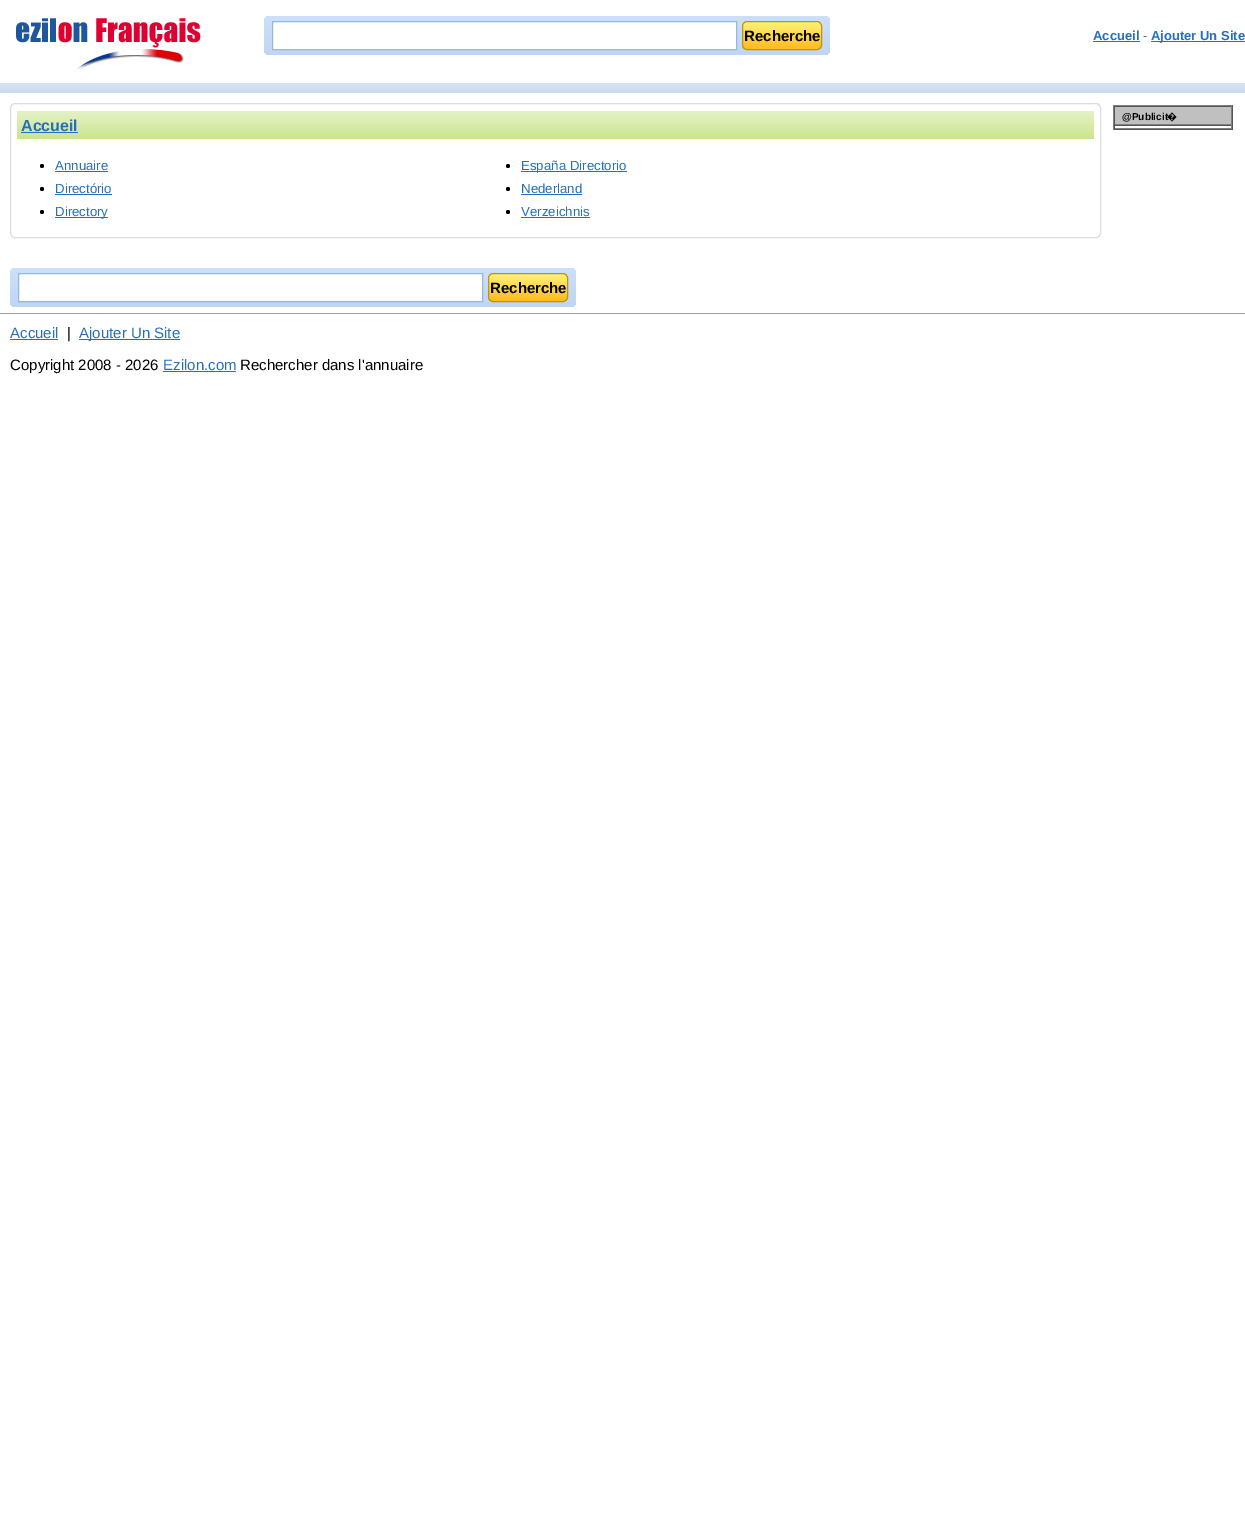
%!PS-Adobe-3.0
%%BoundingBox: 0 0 1245 1526
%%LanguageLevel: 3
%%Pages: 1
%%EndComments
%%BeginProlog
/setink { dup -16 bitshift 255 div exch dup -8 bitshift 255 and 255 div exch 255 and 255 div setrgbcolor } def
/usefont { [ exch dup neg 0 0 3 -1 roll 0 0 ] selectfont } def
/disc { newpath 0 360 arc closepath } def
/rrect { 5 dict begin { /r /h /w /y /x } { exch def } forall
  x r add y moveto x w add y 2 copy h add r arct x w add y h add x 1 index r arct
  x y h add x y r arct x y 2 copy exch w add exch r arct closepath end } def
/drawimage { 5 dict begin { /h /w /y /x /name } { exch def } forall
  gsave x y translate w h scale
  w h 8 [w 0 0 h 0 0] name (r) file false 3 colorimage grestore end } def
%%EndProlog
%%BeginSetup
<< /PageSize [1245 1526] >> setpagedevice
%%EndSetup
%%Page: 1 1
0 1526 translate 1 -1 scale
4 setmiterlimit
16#FFFFFF setink
0 0 1245 1526 rectfill
(img1.raw) 16 18 185 52 drawimage
gsave 264 16 566 39 6 rrect clip newpath
<< /ShadingType 2 /ColorSpace /DeviceRGB /Coords [547 16 547 55] /Extend [true true] /Function << /FunctionType 2 /Domain [0 1] /C0 [0.804 0.878 0.976] /C1 [0.749 0.835 0.953] /N 1 >> >> shfill grestore
272.5 21.5 moveto 736.5 21.5 lineto 736.5 49.5 lineto 272.5 49.5 lineto closepath gsave fill grestore
16#98B7E0 setink
stroke
gsave
742 21 80 29 5 rrect clip newpath
gsave 742 22 moveto 822 22 lineto 822 49 lineto 742 49 lineto closepath clip newpath
<< /ShadingType 2 /ColorSpace /DeviceRGB /Coords [782 22 782 49] /Extend [true true] /Function << /FunctionType 2 /Domain [0 1] /C0 [0.996 0.953 0.471] /C1 [1 0.729 0.125] /N 1 >> >> shfill grestore
grestore
16#BA9515 setink
742.5 21.5 79 28 4.5 rrect stroke
/LiberationSans-Bold 15 usefont
16#000000 setink
744 41 moveto (Recherche) show
/LiberationSans-Bold 13 usefont
16#2470BD setink
1093 40 moveto (Accueil) show
1093 41 47 1 rectfill
/LiberationSans-Regular 13 usefont
16#5868D0 setink
1143 40 moveto (-) show
16#2470BD setink
1151 41 94 1 rectfill
/LiberationSans-Bold 13 usefont
1151 40 moveto (Ajouter Un Site) show
gsave 0 83 moveto 1245 83 lineto 1245 93 lineto 0 93 lineto closepath clip newpath
<< /ShadingType 2 /ColorSpace /DeviceRGB /Coords [623 83 623 93] /Extend [true true] /Function << /FunctionType 2 /Domain [0 1] /C0 [0.851 0.898 0.957] /C1 [0.78 0.863 0.929] /N 1 >> >> shfill grestore
[
    [1113 105 120 1 16#808080]
    [1232 105 1 25 16#555555]
    [1113 129 120 1 16#555555]
    [1113 105 1 25 16#808080]
    [1115 107 116 17 16#C0C0C0]
    [1114 106 118 1 16#555555]
    [1231 106 1 19 16#808080]
    [1114 124 118 1 16#808080]
    [1114 106 1 19 16#555555]
] { aload pop setink rectfill } forall
/LiberationSans-Bold 10 usefont
16#000000 setink
1122 120 moveto (@Publicit) show
/NotoSans-Bold 10 usefont
1167 120 moveto (�) show
[
    [1114 125 118 1 16#555555]
    [1231 125 1 4 16#808080]
    [1114 128 118 1 16#808080]
    [1114 125 1 4 16#555555]
] { aload pop setink rectfill } forall
16#DDDDDD setink
10.5 103.5 1090 134 4.5 rrect stroke
gsave 17 111 moveto 1094 111 lineto 1094 139 lineto 17 139 lineto closepath clip newpath
<< /ShadingType 2 /ColorSpace /DeviceRGB /Coords [556 111 556 139] /Extend [true true] /Function << /FunctionType 2 /Domain [0 1] /C0 [0.898 0.949 0.776] /C1 [0.796 0.898 0.557] /N 1 >> >> shfill grestore
/LiberationSans-Bold 16 usefont
16#2470BD setink
21 131 moveto (Accueil) show
21 132 57 1 rectfill
16#000000 setink
42 166 2 disc fill
/LiberationSans-Regular 13.25 usefont
16#2470BD setink
55 170 moveto (Annuaire) show
55 171 53 1 rectfill
16#000000 setink
42 189 2 disc fill
16#2470BD setink
55 193 moveto (Directório) show
55 194 57 1 rectfill
16#000000 setink
42 212 2 disc fill
16#2470BD setink
55 217 53 1 rectfill
55 216 moveto (Directory) show
16#000000 setink
508 166 2 disc fill
16#2470BD setink
521 171 106 1 rectfill
521 170 moveto (España Directorio) show
16#000000 setink
508 189 2 disc fill
16#2470BD setink
521 193 moveto (Nederland) show
521 194 61 1 rectfill
16#000000 setink
508 212 2 disc fill
16#2470BD setink
521 216 moveto (Verzeichnis) show
521 217 69 1 rectfill
gsave 10 268 566 39 6 rrect clip newpath
<< /ShadingType 2 /ColorSpace /DeviceRGB /Coords [293 268 293 307] /Extend [true true] /Function << /FunctionType 2 /Domain [0 1] /C0 [0.804 0.878 0.976] /C1 [0.749 0.835 0.953] /N 1 >> >> shfill grestore
16#FFFFFF setink
18.5 273.5 moveto 482.5 273.5 lineto 482.5 301.5 lineto 18.5 301.5 lineto closepath gsave fill grestore
16#98B7E0 setink
stroke
gsave
488 273 80 29 5 rrect clip newpath
gsave 488 274 moveto 568 274 lineto 568 301 lineto 488 301 lineto closepath clip newpath
<< /ShadingType 2 /ColorSpace /DeviceRGB /Coords [528 274 528 301] /Extend [true true] /Function << /FunctionType 2 /Domain [0 1] /C0 [0.996 0.953 0.471] /C1 [1 0.729 0.125] /N 1 >> >> shfill grestore
grestore
16#BA9515 setink
488.5 273.5 79 28 4.5 rrect stroke
/LiberationSans-Bold 15 usefont
16#000000 setink
490 293 moveto (Recherche) show
16#9F9F9F setink
0 313 1245 1 rectfill
/LiberationSans-Regular 15 usefont
16#2470BD setink
10 338 moveto (Accueil) show
10 339 48 1 rectfill
16#000000 setink
67 338 moveto (|) show
16#2470BD setink
79 339 101 1 rectfill
79 338 moveto (Ajouter Un Site) show
16#000000 setink
10 370 moveto (Copyright 2008 - 2026) show
16#2470BD setink
163 370 moveto (Ezilon.com) show
163 371 73 1 rectfill
16#000000 setink
240 370 moveto (Rechercher dans l'annuaire) show
showpage
%%EOF
